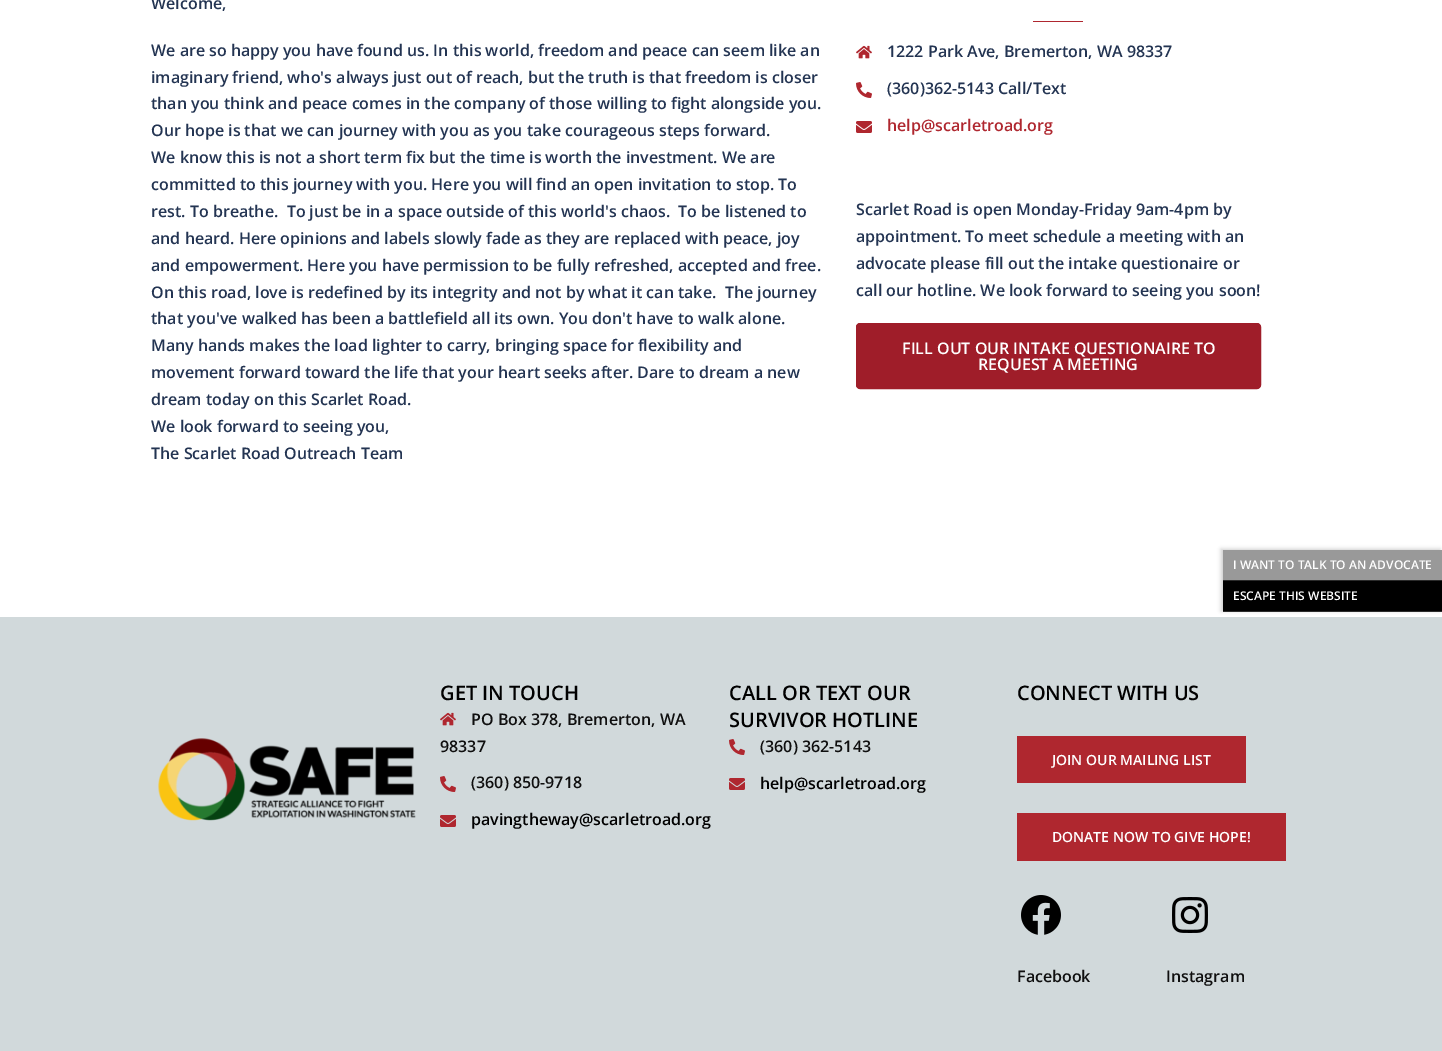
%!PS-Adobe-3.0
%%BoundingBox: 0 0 1442 1051
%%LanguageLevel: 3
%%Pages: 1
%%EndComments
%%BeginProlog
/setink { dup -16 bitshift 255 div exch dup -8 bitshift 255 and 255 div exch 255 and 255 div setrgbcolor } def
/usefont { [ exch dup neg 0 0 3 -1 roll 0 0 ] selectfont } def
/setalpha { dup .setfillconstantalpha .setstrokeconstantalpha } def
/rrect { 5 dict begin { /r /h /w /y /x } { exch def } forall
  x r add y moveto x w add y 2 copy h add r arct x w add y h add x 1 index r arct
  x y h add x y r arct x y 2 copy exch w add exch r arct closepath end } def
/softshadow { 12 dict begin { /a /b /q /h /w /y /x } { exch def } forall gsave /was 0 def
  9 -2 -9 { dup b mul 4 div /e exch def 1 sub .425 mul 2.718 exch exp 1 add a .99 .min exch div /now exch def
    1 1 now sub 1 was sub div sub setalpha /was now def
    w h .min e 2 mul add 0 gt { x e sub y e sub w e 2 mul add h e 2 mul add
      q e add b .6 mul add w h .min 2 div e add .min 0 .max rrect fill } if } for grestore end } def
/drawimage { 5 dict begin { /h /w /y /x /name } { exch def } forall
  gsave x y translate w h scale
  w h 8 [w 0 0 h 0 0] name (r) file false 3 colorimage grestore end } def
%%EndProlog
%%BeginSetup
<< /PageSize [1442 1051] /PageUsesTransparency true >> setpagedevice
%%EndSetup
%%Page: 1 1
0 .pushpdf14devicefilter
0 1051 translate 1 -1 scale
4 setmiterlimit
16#FFFFFF setink
0 0 1442 1051 rectfill
/OpenSans-SemiBold 16 usefont
16#233452 setink
[
    [(Welcome,) 151 9]
    [(We are so happy you have found us. In this world, freedom and peace can seem like an) 151 56]
    [(imaginary friend, who's always just out of reach, but the truth is that freedom is closer) 151 83]
    [(than you think and peace comes in the company of those willing to fight alongside you.) 151 109]
    [(Our hope is that we can journey with you as you take courageous steps forward.) 151 136]
    [(We know this is not a short term fix but the time is worth the investment. We are) 151 163]
    [(committed to this journey with you. Here you will find an open invitation to stop. To) 151 190]
    [(rest. To breathe.  To just be in a space outside of this world's chaos.  To be listened to) 151 217]
    [(and heard. Here opinions and labels slowly fade as they are replaced with peace, joy) 151 244]
    [(and empowerment. Here you have permission to be fully refreshed, accepted and free.) 151 271]
    [(On this road, love is redefined by its integrity and not by what it can take.  The journey) 151 298]
    [(that you've walked has been a battlefield all its own. You don't have to walk alone.) 151 324]
    [(Many hands makes the load lighter to carry, bringing space for flexibility and) 151 351]
    [(movement forward toward the life that your heart seeks after. Dare to dream a new) 151 378]
    [(dream today on this Scarlet Road.) 151 405]
    [(We look forward to seeing you,) 151 432]
    [(The Scarlet Road Outreach Team) 151 459]
] { aload pop moveto show } forall
16#AF272F setink
1033 21 50 1 rectfill
(img1.raw) 856 45 16 14 drawimage
16#233452 setink
887 57 moveto (1222 Park Ave, Bremerton, WA 98337) show
(img2.raw) 856 82 16 16 drawimage
887 94 moveto (\(360\)362-5143 Call/Text) show
(img3.raw) 856 121 16 12 drawimage
16#AF272F setink
887 131 moveto (help@scarletroad.org) show
16#233452 setink
[
    [(Scarlet Road is open Monday-Friday 9am-4pm by) 856 215]
    [(appointment. To meet schedule a meeting with an) 856 242]
    [(advocate please fill out the intake questionaire or) 856 269]
    [(call our hotline. We look forward to seeing you soon!) 856 296]
] { aload pop moveto show } forall
16#9F1D29 setink
856.5 323.5 404 65 3.5 rrect gsave fill grestore
stroke
16#FFFFFF setink
902 354 moveto (FILL OUT OUR INTAKE QUESTIONAIRE TO) show
978 370 moveto (REQUEST A MEETING) show
16#D1D9DB setink
0 617 1442 434 rectfill
(img4.raw) 158 738 258 83 drawimage
/OpenSans-SemiBold 20 usefont
16#000000 setink
440 700 moveto (GET IN TOUCH) show
(img5.raw) 440 712 16 14 drawimage
/OpenSans-SemiBold 16 usefont
16#0F0F0F setink
471 725 moveto (PO Box 378, Bremerton, WA) show
440 752 moveto (98337) show
(img6.raw) 440 776 16 16 drawimage
471 788 moveto (\(360\) 850-9718) show
(img7.raw) 440 815 16 12 drawimage
16#000000 setink
471 825 moveto (pavingtheway@scarletroad.org) show
/OpenSans-SemiBold 20 usefont
729 700 moveto (CALL OR TEXT OUR) show
729 727 moveto (SURVIVOR HOTLINE) show
(img6.raw) 729 739 16 16 drawimage
/OpenSans-SemiBold 16 usefont
16#0F0F0F setink
760 752 moveto (\(360\) 362-5143) show
(img7.raw) 729 778 16 12 drawimage
16#000000 setink
760 789 moveto (help@scarletroad.org) show
/OpenSans-SemiBold 20 usefont
1017 700 moveto (CONNECT WITH US) show
16#AF272F setink
1017 736 229 47 rectfill
/OpenSans-SemiBold 14 usefont
16#FFFFFF setink
1052 765 moveto (JOIN OUR MAILING LIST) show
16#AF272F setink
1017 813 269 48 rectfill
16#FFFFFF setink
1052 842 moveto (DONATE NOW TO GIVE HOPE!) show
(img8.raw) 1021 895 40 40 drawimage
/OpenSans-SemiBold 16 usefont
16#0F0F0F setink
1017 982 moveto (Facebook) show
(img9.raw) 1172 897 36 36 drawimage
1166 982 moveto (Instagram) show
16#CCCCCC setink
1221 549 219 62 0 2 1 softshadow
16#2B2B2B setink
1223 580 219 1 rectfill
16#999999 setink
1223 550 219 30 rectfill
/OpenSans-SemiBold 12 usefont
16#FFFFFF setink
1233 569 moveto (I WANT TO TALK TO AN ADVOCATE) show
16#2B2B2B setink
1223 611 219 1 rectfill
16#000000 setink
1223 581 219 30 rectfill
16#FFFFFF setink
1233 600 moveto (ESCAPE THIS WEBSITE) show
.poppdf14devicefilter showpage
%%EOF
